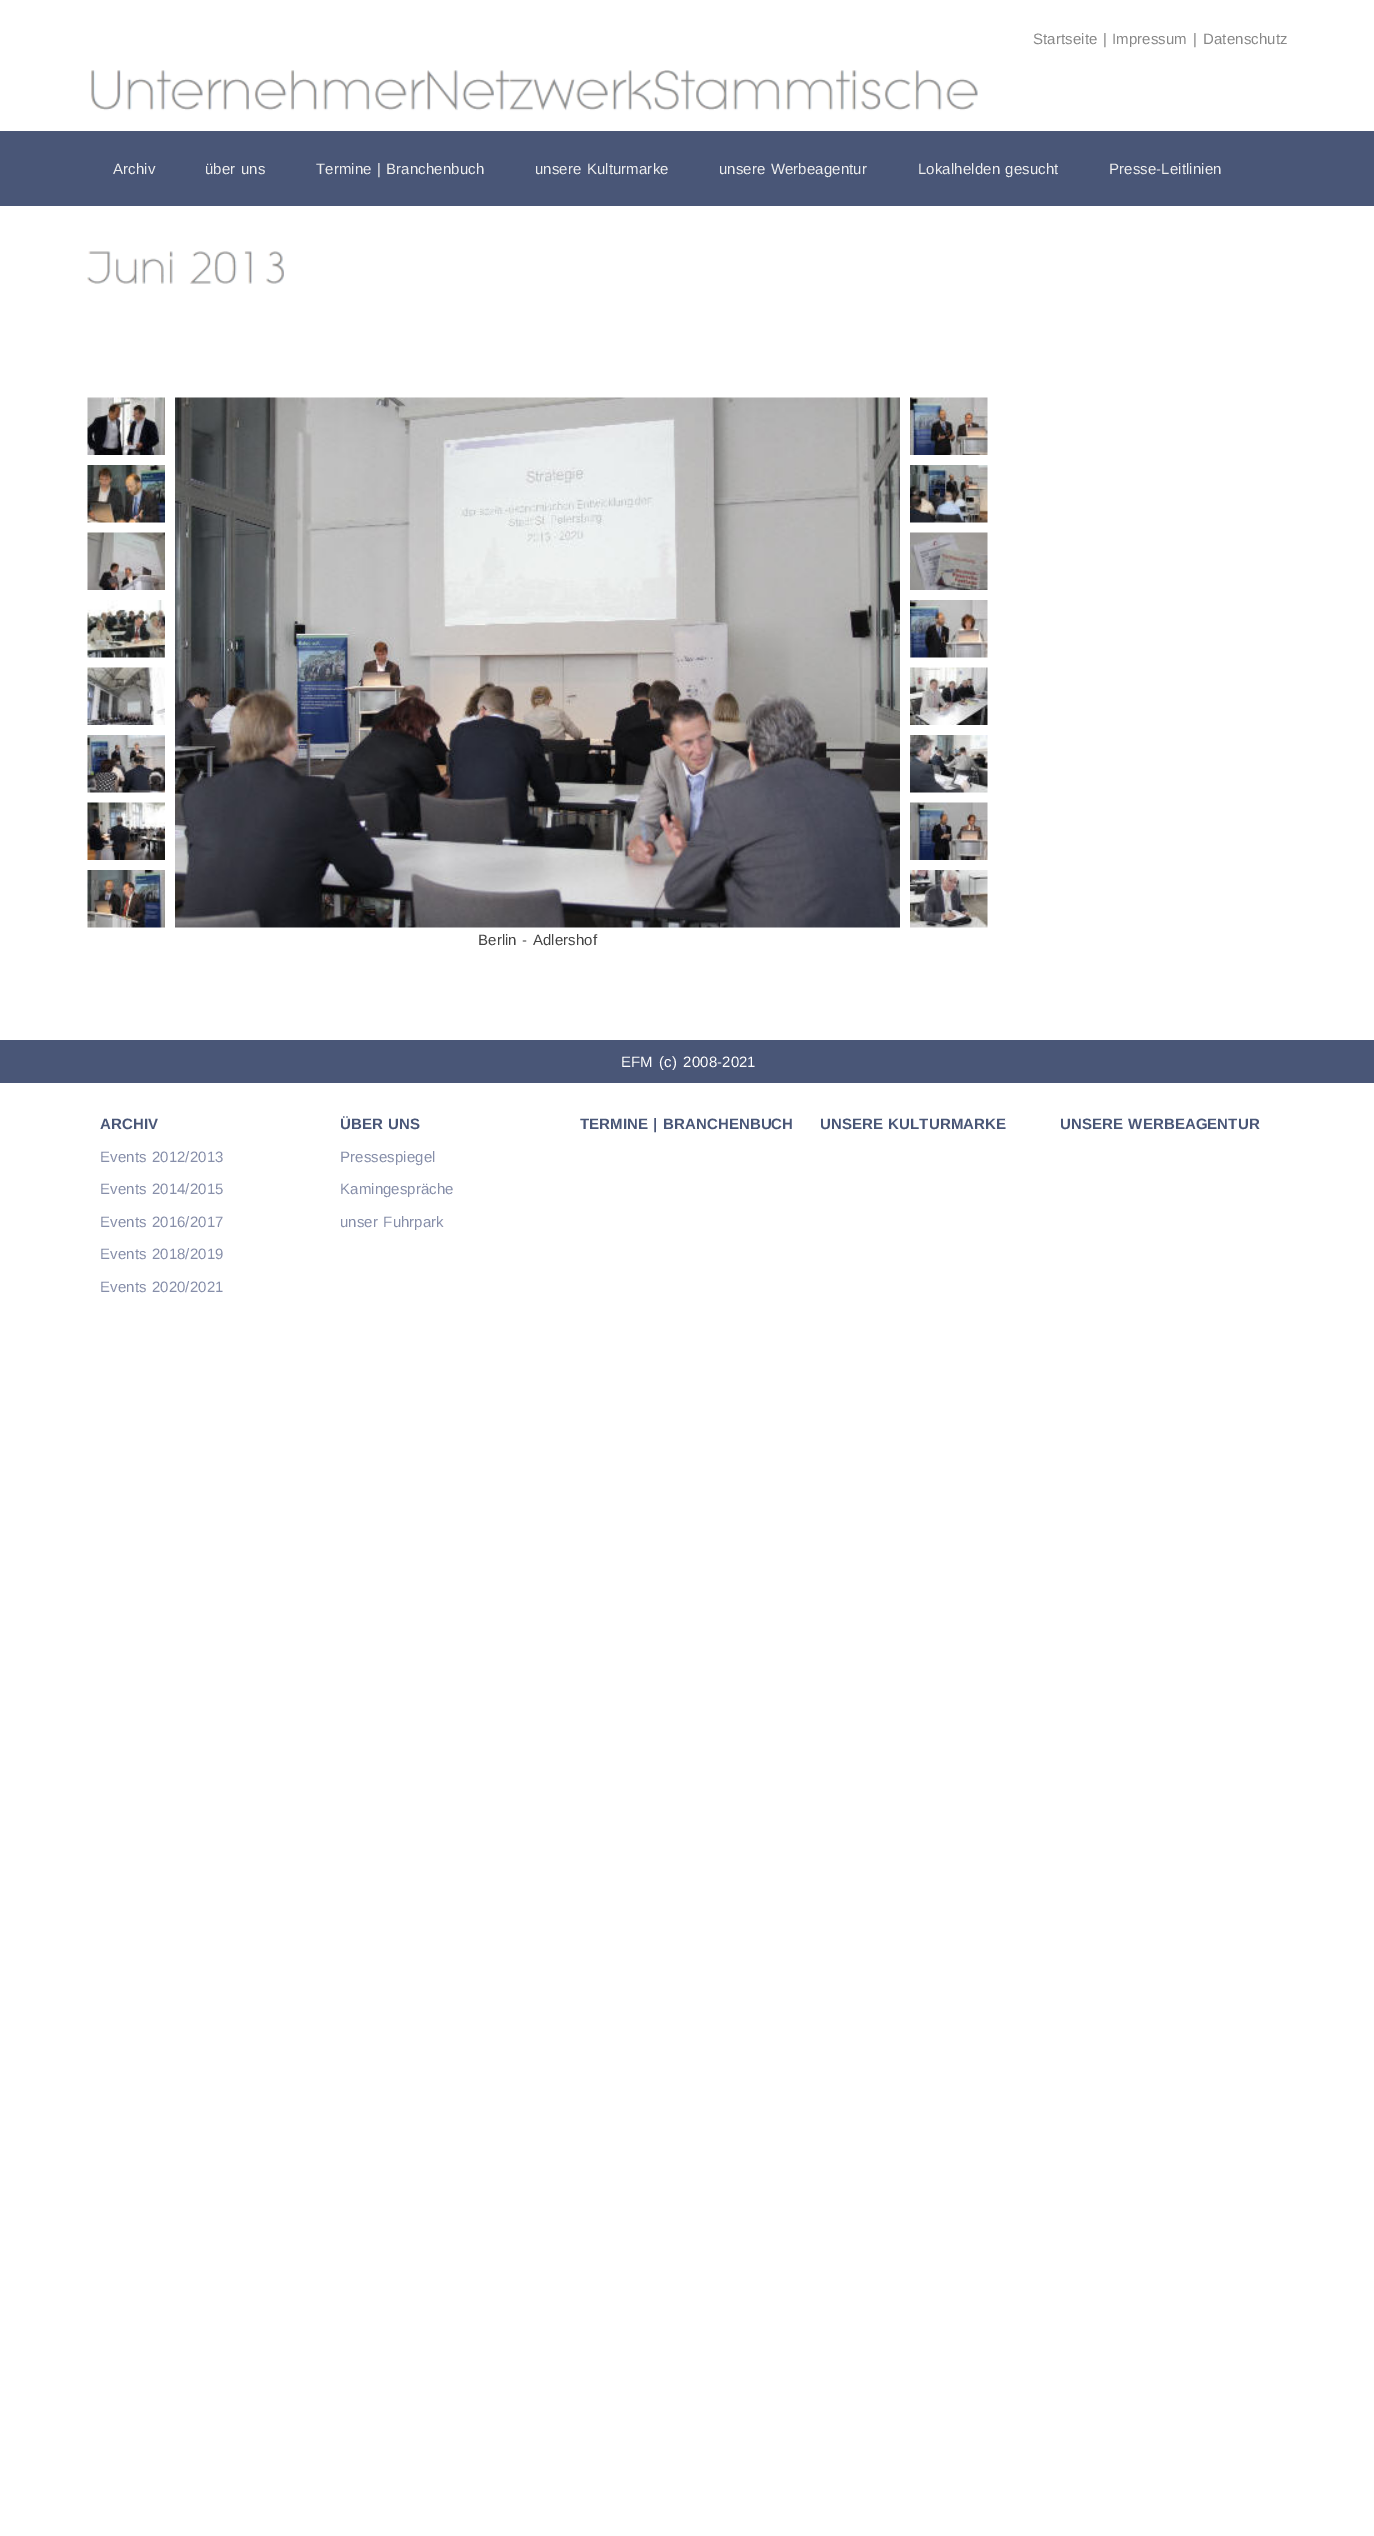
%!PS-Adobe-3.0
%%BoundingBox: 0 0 1374 2536
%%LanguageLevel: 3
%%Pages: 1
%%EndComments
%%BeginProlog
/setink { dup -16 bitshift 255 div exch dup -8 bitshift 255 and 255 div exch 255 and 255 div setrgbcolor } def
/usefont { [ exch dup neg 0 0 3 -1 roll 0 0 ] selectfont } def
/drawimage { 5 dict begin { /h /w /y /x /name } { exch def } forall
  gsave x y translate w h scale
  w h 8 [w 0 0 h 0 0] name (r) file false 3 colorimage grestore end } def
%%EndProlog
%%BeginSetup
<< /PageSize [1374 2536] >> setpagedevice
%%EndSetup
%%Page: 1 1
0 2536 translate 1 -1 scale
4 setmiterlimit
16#FFFFFF setink
0 0 1374 2536 rectfill
(img1.raw) 91 70 887 41 drawimage
/LiberationSans-Regular 15 usefont
16#888888 setink
1033 44 moveto 0.1 0 (Startseite) ashow
1103 44 moveto 0.1 0 (|) ashow
1112 44 moveto 0.1 0 (Impressum) ashow
1193 44 moveto 0.1 0 (|) ashow
1203 44 moveto 0.1 0 (Datenschutz) ashow
16#495677 setink
0 131 1374 75 rectfill
16#EEEEEE setink
113 174 moveto 0.1 0 (Archiv) ashow
205 174 moveto 1 0 32 0.1 0 (über uns) awidthshow
316 174 moveto 1 0 32 0.1 0 (Termine | Branchenbuch) awidthshow
535 174 moveto 1 0 32 0.1 0 (unsere Kulturmarke) awidthshow
719 174 moveto 1 0 32 0.1 0 (unsere Werbeagentur) awidthshow
918 174 moveto 1 0 32 0.1 0 (Lokalhelden gesucht) awidthshow
1109 174 moveto 0.1 0 (Presse-Leitlinien) ashow
(img2.raw) 87 251 197 33 drawimage
(img3.raw) 87 397 78 58 drawimage
(img4.raw) 175 397 725 531 drawimage
(img5.raw) 910 397 78 58 drawimage
(img6.raw) 87 465 78 58 drawimage
(img7.raw) 910 465 78 58 drawimage
(img8.raw) 87 532 78 58 drawimage
(img9.raw) 910 532 78 58 drawimage
(img10.raw) 87 600 78 58 drawimage
(img11.raw) 910 600 78 58 drawimage
(img12.raw) 87 667 78 58 drawimage
(img13.raw) 910 667 78 58 drawimage
(img14.raw) 87 735 78 58 drawimage
(img15.raw) 910 735 78 58 drawimage
(img16.raw) 87 802 78 58 drawimage
(img17.raw) 910 802 78 58 drawimage
(img18.raw) 87 870 78 58 drawimage
(img19.raw) 910 870 78 58 drawimage
16#444444 setink
478 945 moveto 1 0 32 0.1 0 (Berlin - Adlershof) awidthshow
16#495677 setink
0 1040 1374 43 rectfill
16#FFFFFF setink
621 1067 moveto 2 0 32 0.1 0 (EFM \(c\) 2008-2021) awidthshow
/LiberationSans-Bold 15 usefont
16#495677 setink
100 1129 moveto 0.1 0 (ARCHIV) ashow
/LiberationSans-Regular 15 usefont
16#868EA9 setink
100 1162 moveto 1 0 32 0.1 0 (Events 2012/2013) awidthshow
100 1194 moveto 1 0 32 0.1 0 (Events 2014/2015) awidthshow
100 1227 moveto 1 0 32 0.1 0 (Events 2016/2017) awidthshow
100 1259 moveto 1 0 32 0.1 0 (Events 2018/2019) awidthshow
100 1292 moveto 1 0 32 0.1 0 (Events 2020/2021) awidthshow
/LiberationSans-Bold 15 usefont
16#495677 setink
340 1129 moveto 1 0 32 0.1 0 (ÜBER UNS) awidthshow
/LiberationSans-Regular 15 usefont
16#868EA9 setink
340 1162 moveto 0.1 0 (Pressespiegel) ashow
340 1194 moveto 0.1 0 (Kamingespräche) ashow
340 1227 moveto 1 0 32 0.1 0 (unser Fuhrpark) awidthshow
/LiberationSans-Bold 15 usefont
16#495677 setink
580 1129 moveto 1 0 32 0.1 0 (TERMINE | BRANCHENBUCH) awidthshow
820 1129 moveto 1 0 32 0.1 0 (UNSERE KULTURMARKE) awidthshow
1060 1129 moveto 1 0 32 0.1 0 (UNSERE WERBEAGENTUR) awidthshow
showpage
%%EOF
